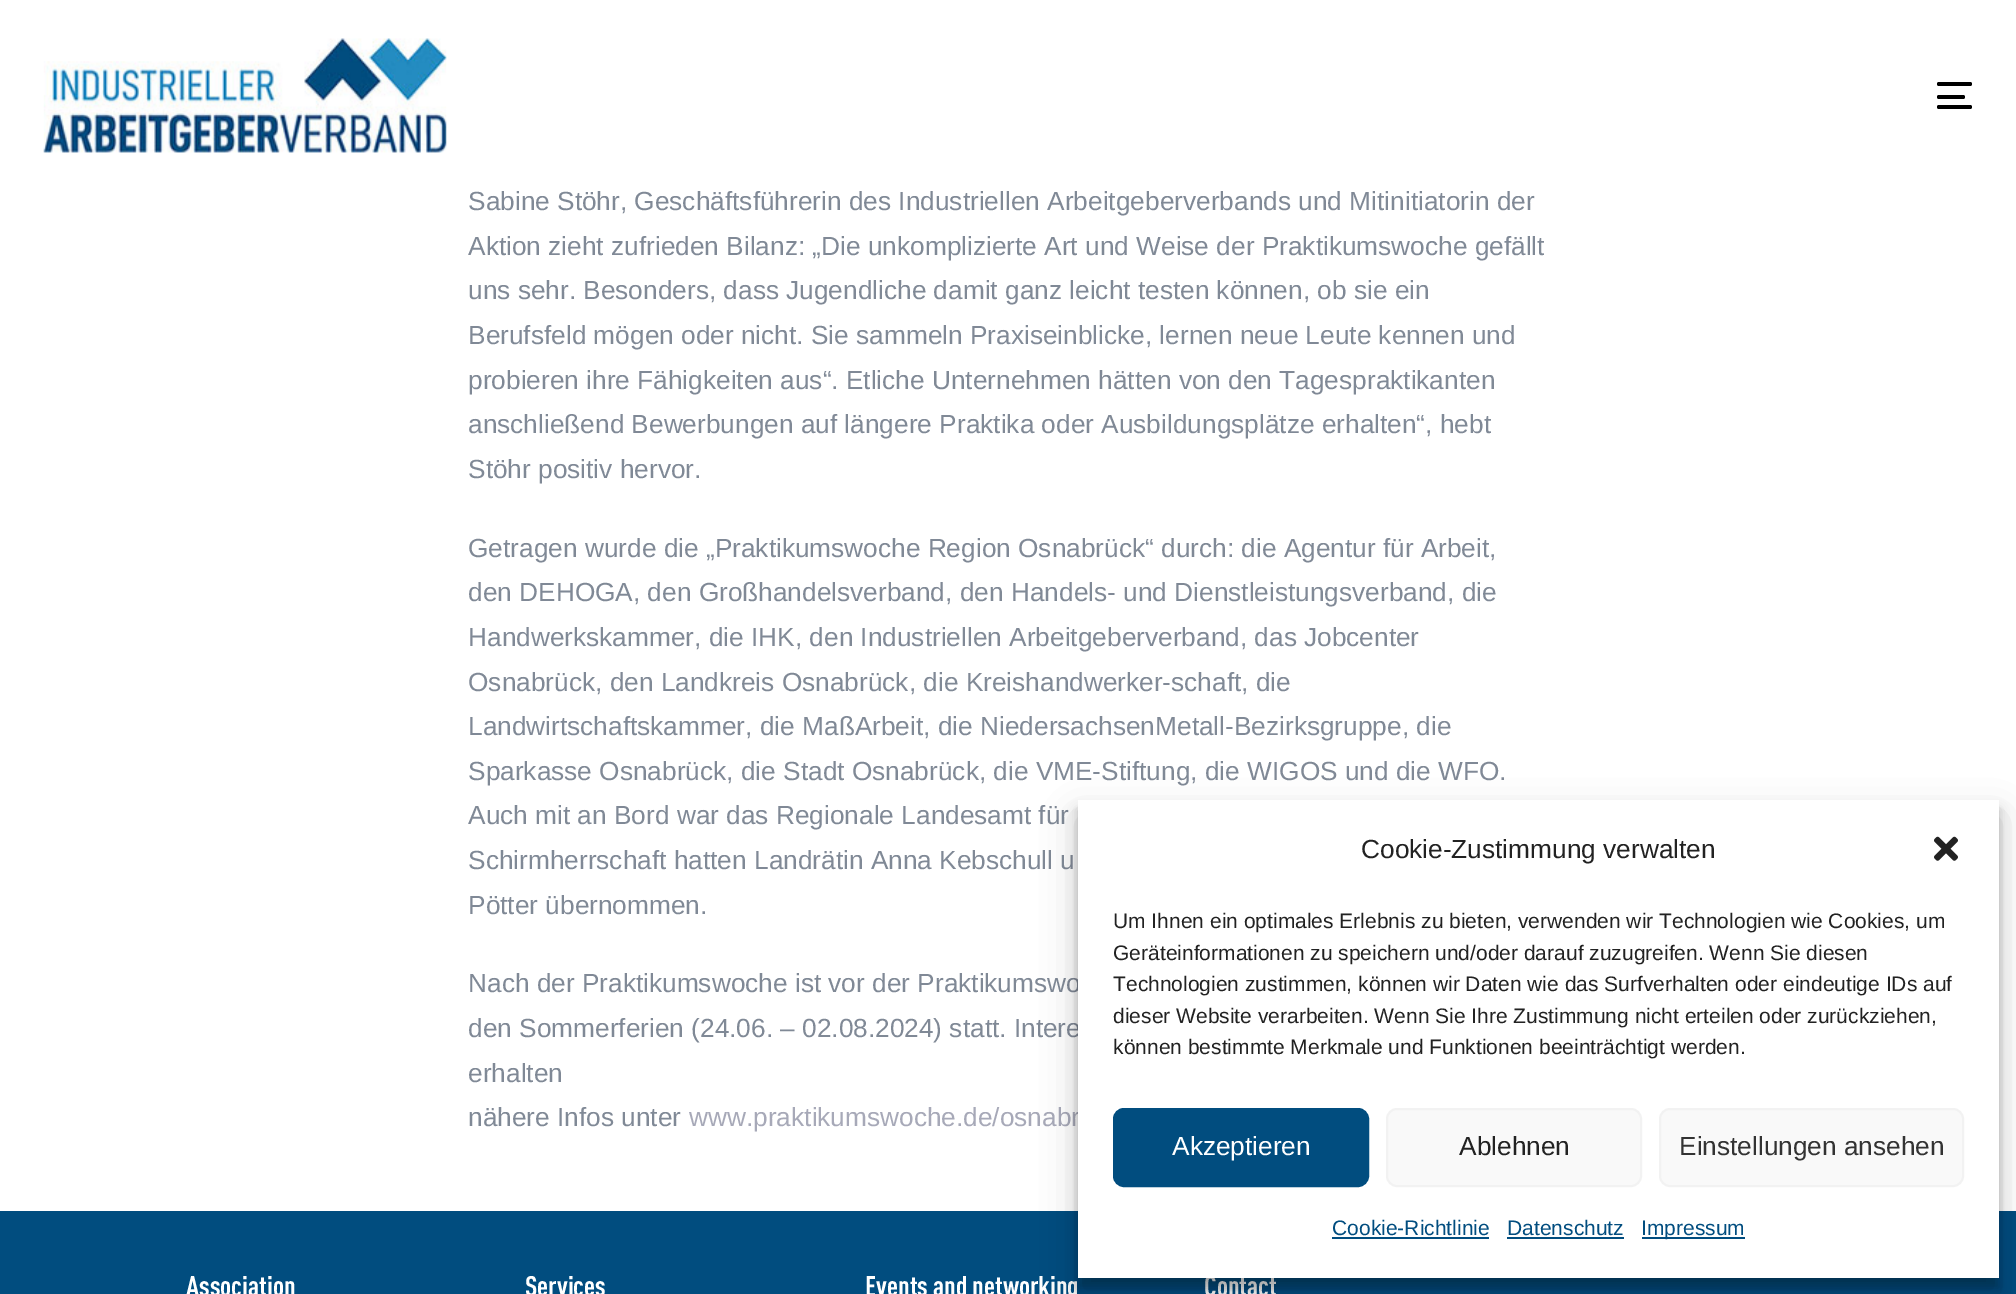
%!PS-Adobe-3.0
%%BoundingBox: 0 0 2016 1294
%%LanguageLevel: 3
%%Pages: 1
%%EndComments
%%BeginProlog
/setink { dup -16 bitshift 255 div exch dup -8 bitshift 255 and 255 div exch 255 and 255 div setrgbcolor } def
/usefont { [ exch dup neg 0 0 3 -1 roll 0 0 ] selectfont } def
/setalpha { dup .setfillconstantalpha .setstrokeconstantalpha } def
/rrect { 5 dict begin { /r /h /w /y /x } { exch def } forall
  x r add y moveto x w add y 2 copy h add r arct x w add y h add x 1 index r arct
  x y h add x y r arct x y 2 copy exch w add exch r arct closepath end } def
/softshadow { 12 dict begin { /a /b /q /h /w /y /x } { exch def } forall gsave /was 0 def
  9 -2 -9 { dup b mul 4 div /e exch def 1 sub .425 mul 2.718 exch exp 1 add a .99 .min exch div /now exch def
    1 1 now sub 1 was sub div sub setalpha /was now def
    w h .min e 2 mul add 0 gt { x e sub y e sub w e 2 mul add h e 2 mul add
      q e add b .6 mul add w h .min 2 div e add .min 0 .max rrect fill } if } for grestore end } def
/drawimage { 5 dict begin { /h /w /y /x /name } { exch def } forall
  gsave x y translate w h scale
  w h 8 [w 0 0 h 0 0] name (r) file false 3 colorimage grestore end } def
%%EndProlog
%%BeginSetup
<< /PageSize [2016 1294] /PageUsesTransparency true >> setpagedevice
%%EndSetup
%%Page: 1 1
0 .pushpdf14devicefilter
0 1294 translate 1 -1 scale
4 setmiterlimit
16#FFFFFF setink
0 0 2016 1294 rectfill
(img1.raw) 43 38 404 115 drawimage
16#000000 setink
1937 82 35 4 2 rrect fill
1937 95 28 4 2 rrect fill
1937 105 35 4 2 rrect fill
/LiberationSans-Regular 26.25 usefont
16#808996 setink
[
    [(Sabine Stöhr, Geschäftsführerin des Industriellen Arbeitgeberverbands und Mitinitiatorin der) 468 210]
    [(Aktion zieht zufrieden Bilanz: „Die unkomplizierte Art und Weise der Praktikumswoche gefällt) 468 255]
    [(uns sehr. Besonders, dass Jugendliche damit ganz leicht testen können, ob sie ein) 468 299]
    [(Berufsfeld mögen oder nicht. Sie sammeln Praxiseinblicke, lernen neue Leute kennen und) 468 344]
    [(probieren ihre Fähigkeiten aus“. Etliche Unternehmen hätten von den Tagespraktikanten) 468 389]
    [(anschließend Bewerbungen auf längere Praktika oder Ausbildungsplätze erhalten“, hebt) 468 433]
    [(Stöhr positiv hervor.) 468 478]
    [(Getragen wurde die „Praktikumswoche Region Osnabrück“ durch: die Agentur für Arbeit,) 468 557]
    [(den DEHOGA, den Großhandelsverband, den Handels- und Dienstleistungsverband, die) 468 601]
    [(Handwerkskammer, die IHK, den Industriellen Arbeitgeberverband, das Jobcenter) 468 646]
    [(Osnabrück, den Landkreis Osnabrück, die Kreishandwerker-schaft, die) 468 691]
    [(Landwirtschaftskammer, die MaßArbeit, die NiedersachsenMetall-Bezirksgruppe, die) 468 735]
    [(Sparkasse Osnabrück, die Stadt Osnabrück, die VME-Stiftung, die WIGOS und die WFO.) 468 780]
    [(Auch mit an Bord war das Regionale Landesamt für) 468 824]
    [(Schirmherrschaft hatten Landrätin Anna Kebschull u) 468 869]
    [(Pötter übernommen.) 468 914]
    [(Nach der Praktikumswoche ist vor der Praktikumswo) 468 992]
    [(den Sommerferien \(24.06. – 02.08.2024\) statt. Intere) 468 1037]
    [(erhalten) 468 1082]
    [(nähere Infos unter) 468 1126]
] { aload pop moveto show } forall
16#A7A9B8 setink
689 1126 moveto (www.praktikumswoche.de/osnabr) show
16#014D7F setink
0 1211 2016 83 rectfill
/DIN-Bold 28 usefont
16#FFFFFF setink
[
    [(Association) 186 1296]
    [(Services) 525 1296]
    [(Events and networking) 865 1296]
    [(Contact) 1204 1296]
] { aload pop moveto show } forall
16#000000 setink
1078 810 921 478 0 5 0.23 softshadow
1078 817 921 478 0 17.5 0.19 softshadow
16#FFFFFF setink
1078 800 921 478 rectfill
/LiberationSans-Regular 26.25 usefont
16#222222 setink
1361 858 moveto (Cookie-Zustimmung verwalten) show
(img2.raw) 1934 836 24 25 drawimage
/LiberationSans-Regular 21 usefont
[
    [(Um Ihnen ein optimales Erlebnis zu bieten, verwenden wir Technologien wie Cookies, um) 1113 928]
    [(Geräteinformationen zu speichern und/oder darauf zuzugreifen. Wenn Sie diesen) 1113 960]
    [(Technologien zustimmen, können wir Daten wie das Surfverhalten oder eindeutige IDs auf) 1113 991]
    [(dieser Website verarbeiten. Wenn Sie Ihre Zustimmung nicht erteilen oder zurückziehen,) 1113 1023]
    [(können bestimmte Merkmale und Funktionen beeinträchtigt werden.) 1113 1054]
] { aload pop moveto show } forall
16#014D7F setink
1114 1109 254 77 10 rrect gsave fill grestore
2 setlinewidth
stroke
/LiberationSans-Regular 26.25 usefont
16#FFFFFF setink
1172 1155 moveto (Akzeptieren) show
16#F9F9F9 setink
1387 1109 254 77 10 rrect gsave fill grestore
16#F2F2F2 setink
stroke
16#222222 setink
1459 1155 moveto (Ablehnen) show
16#F9F9F9 setink
1660 1109 303 77 10 rrect gsave fill grestore
16#F2F2F2 setink
stroke
16#333333 setink
1679 1155 moveto (Einstellungen ansehen) show
/LiberationSans-Regular 21 usefont
16#014D7F setink
1332 1235 moveto (Cookie-Richtlinie) show
1332 1237 157 2 rectfill
1507 1235 moveto (Datenschutz) show
1507 1237 117 2 rectfill
1642 1237 103 2 rectfill
1641 1235 moveto (Impressum) show
.poppdf14devicefilter showpage
%%EOF
